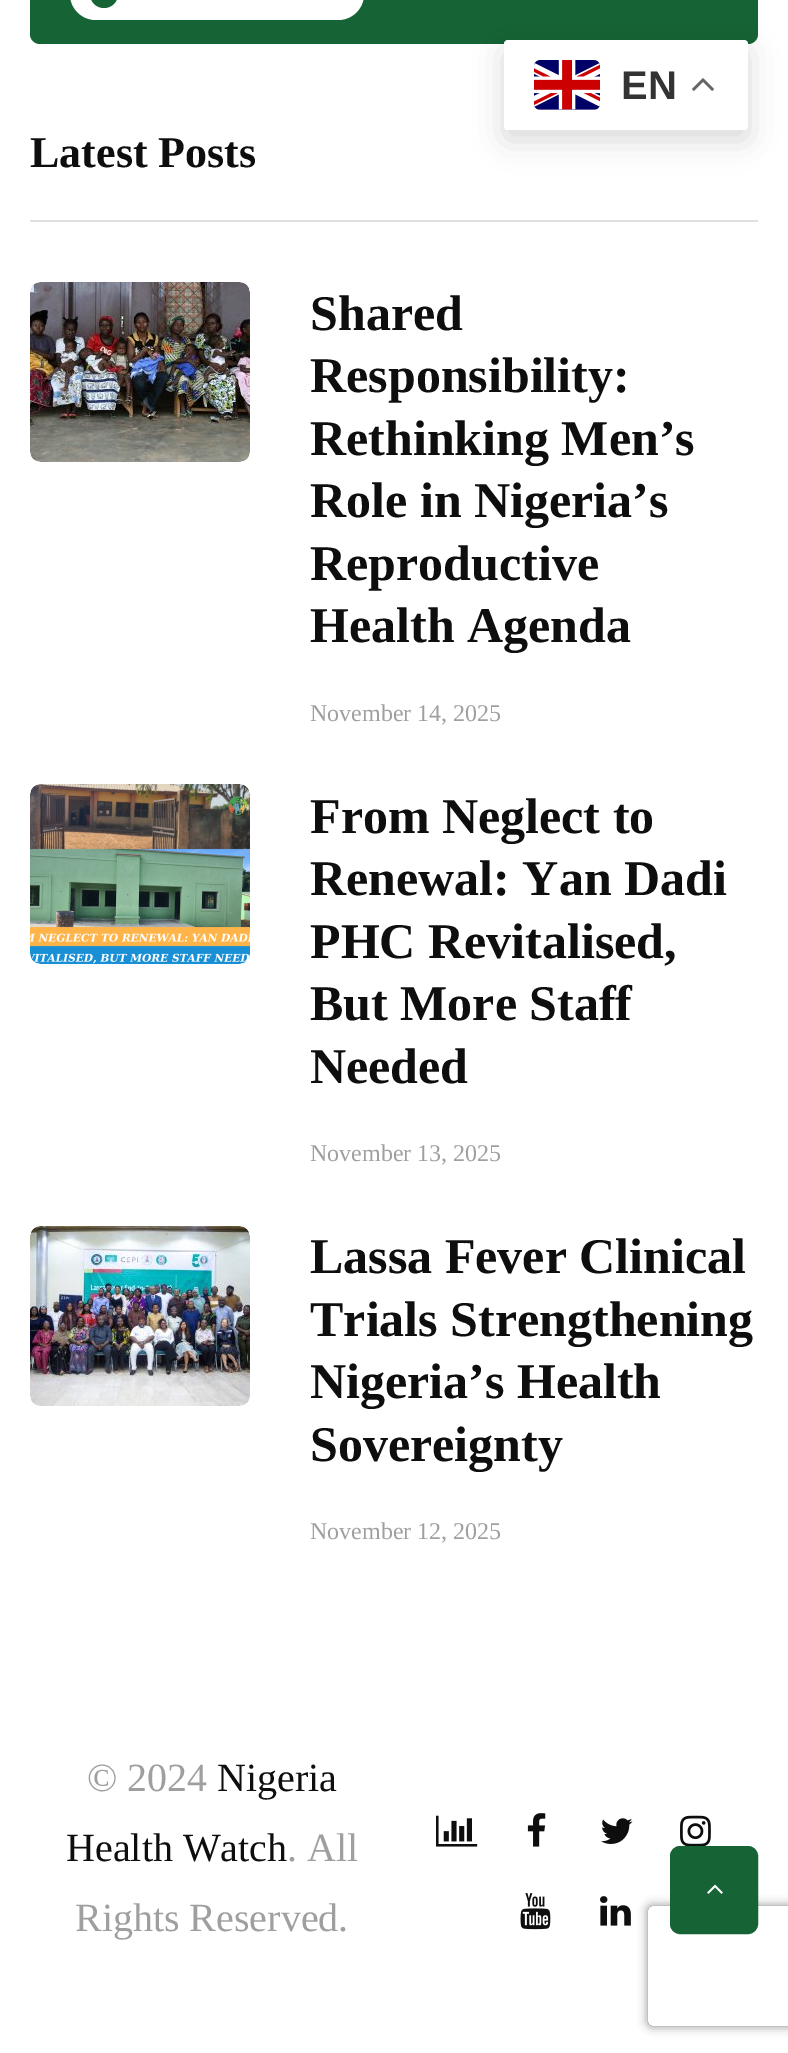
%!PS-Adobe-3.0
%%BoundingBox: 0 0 788 2053
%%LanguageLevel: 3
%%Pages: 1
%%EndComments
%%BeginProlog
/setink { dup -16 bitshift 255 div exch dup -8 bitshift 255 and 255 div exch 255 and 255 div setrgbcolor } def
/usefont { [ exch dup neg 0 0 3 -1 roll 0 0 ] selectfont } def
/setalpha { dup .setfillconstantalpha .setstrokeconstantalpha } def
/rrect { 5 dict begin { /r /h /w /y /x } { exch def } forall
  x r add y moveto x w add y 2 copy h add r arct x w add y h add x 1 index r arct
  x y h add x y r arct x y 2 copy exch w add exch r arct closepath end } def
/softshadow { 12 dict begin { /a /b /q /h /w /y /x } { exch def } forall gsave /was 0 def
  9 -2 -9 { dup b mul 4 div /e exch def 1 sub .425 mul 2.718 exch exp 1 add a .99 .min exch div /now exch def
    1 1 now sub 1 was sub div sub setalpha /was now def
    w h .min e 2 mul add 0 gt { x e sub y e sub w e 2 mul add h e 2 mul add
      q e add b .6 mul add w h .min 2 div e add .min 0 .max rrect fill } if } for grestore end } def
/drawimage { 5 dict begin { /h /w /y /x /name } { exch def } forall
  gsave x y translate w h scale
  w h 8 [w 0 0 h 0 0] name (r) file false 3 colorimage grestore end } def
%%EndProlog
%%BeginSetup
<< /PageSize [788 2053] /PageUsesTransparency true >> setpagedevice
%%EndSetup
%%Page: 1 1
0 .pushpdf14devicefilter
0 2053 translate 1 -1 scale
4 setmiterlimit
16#FFFFFF setink
0 0 788 2053 rectfill
16#166335 setink
30 -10 728 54 10 rrect fill
16#000000 setink
504 50 244 90 4 15 0.15 softshadow
16#FFFFFF setink
504 40 244 90 4 rrect fill
(img1.raw) 534 60 66 50 drawimage
/LiberationSans-Bold 40 usefont
16#333333 setink
621 99 moveto (EN) show
(img2.raw) 692 78 22 13 drawimage
16#FFFFFF setink
70 -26 294 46 26 rrect fill
16#166335 setink
90 -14 28 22 14 rrect fill
16#E0DEDE setink
30 220 728 2 rectfill
/LiberationSerif-Bold 44 usefont
16#0F0E0E setink
30 167 moveto (Latest Posts) show
16#F5F5F5 setink
30 282 220 180 10 rrect fill
(img3.raw) 30 282 220 180 drawimage
/LiberationSerif-Bold 50 usefont
16#0F0E0E setink
[
    [(Shared) 310 330]
    [(Responsibility:) 310 392]
    [(Rethinking Men’s) 310 455]
    [(Role in Nigeria’s) 310 517]
    [(Reproductive) 310 580]
    [(Health Agenda) 310 642]
] { aload pop moveto show } forall
/LiberationSerif-Regular 24 usefont
16#9F9F9F setink
310 721 moveto (November 14, 2025) show
16#F5F5F5 setink
30 784 220 180 10 rrect fill
(img4.raw) 30 784 220 180 drawimage
/LiberationSerif-Bold 50 usefont
16#0F0E0E setink
[
    [(From Neglect to) 310 833]
    [(Renewal: Yan Dadi) 310 895]
    [(PHC Revitalised,) 310 958]
    [(But More Staff) 310 1020]
    [(Needed) 310 1083]
] { aload pop moveto show } forall
/LiberationSerif-Regular 24 usefont
16#9F9F9F setink
310 1161 moveto (November 13, 2025) show
16#F5F5F5 setink
30 1226 220 180 10 rrect fill
(img5.raw) 30 1226 220 180 drawimage
/LiberationSerif-Bold 50 usefont
16#0F0E0E setink
[
    [(Lassa Fever Clinical) 310 1273]
    [(Trials Strengthening) 310 1336]
    [(Nigeria’s Health) 310 1398]
    [(Sovereignty) 310 1461]
] { aload pop moveto show } forall
/LiberationSerif-Regular 24 usefont
16#9F9F9F setink
310 1539 moveto (November 12, 2025) show
/LiberationSerif-Regular 40 usefont
87 1791 moveto (© 2024) show
16#0F0E0E setink
217 1791 moveto (Nigeria) show
66 1861 moveto (Health Watch) show
16#9F9F9F setink
287 1861 moveto (. All) show
75 1931 moveto (Rights Reserved.) show
(img6.raw) 436 1815 42 32 drawimage
(img7.raw) 527 1813 19 34 drawimage
(img8.raw) 601 1818 32 26 drawimage
(img9.raw) 680 1815 31 31 drawimage
(img10.raw) 520 1893 31 37 drawimage
(img11.raw) 600 1896 31 30 drawimage
gsave
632 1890 moveto 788 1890 lineto 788 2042 lineto 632 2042 lineto closepath 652 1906 moveto 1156 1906 lineto 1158 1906 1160 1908 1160 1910 curveto 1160 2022 lineto 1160 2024 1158 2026 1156 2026 curveto 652 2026 lineto 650 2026 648 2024 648 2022 curveto 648 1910 lineto 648 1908 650 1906 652 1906 curveto closepath eoclip newpath
16#808080 setink
648 1906 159 120 4 5 1 softshadow
grestore
16#166335 setink
671 1847 86 86 9 rrect gsave fill grestore
2 setlinewidth
stroke
(img12.raw) 707 1884 16 10 drawimage
.poppdf14devicefilter showpage
%%EOF
